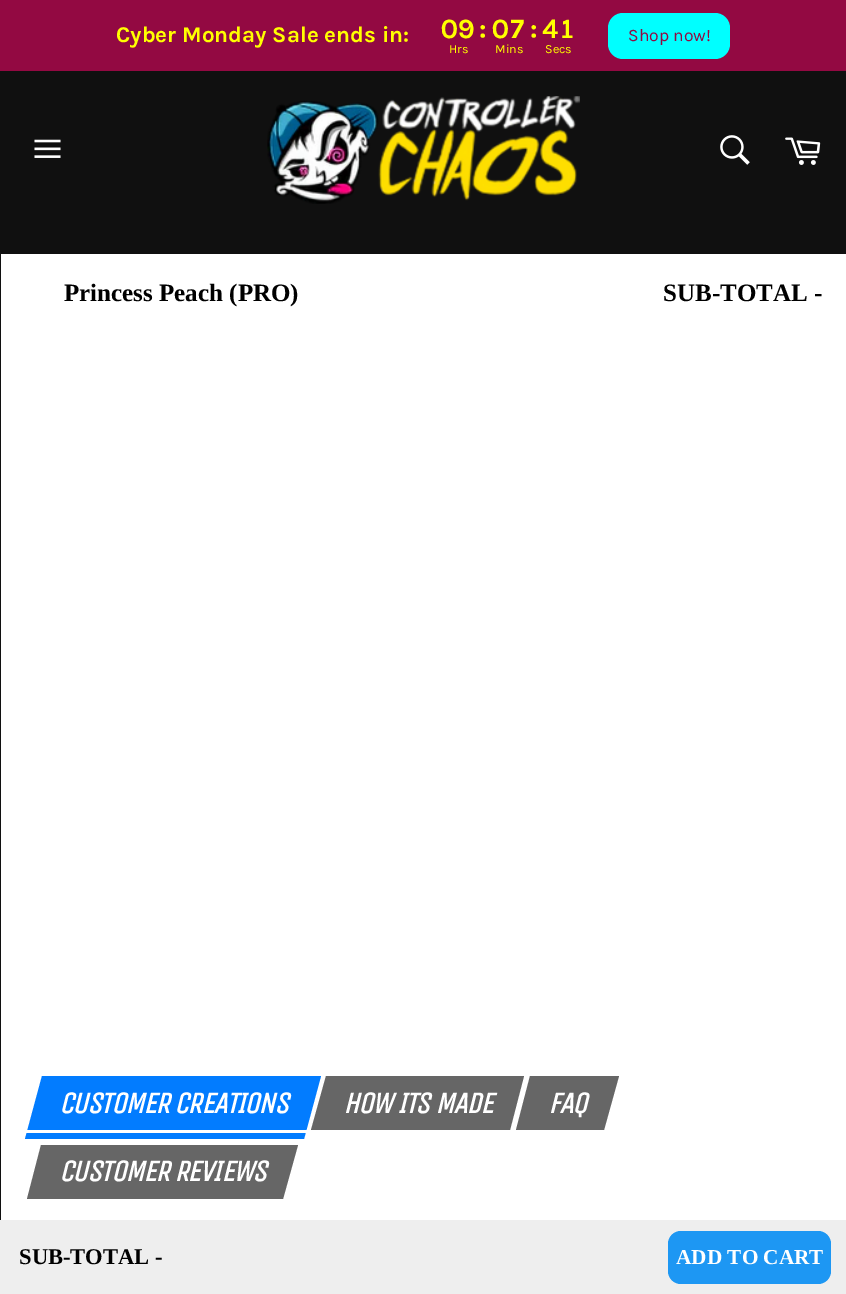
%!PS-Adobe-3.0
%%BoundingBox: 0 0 846 1294
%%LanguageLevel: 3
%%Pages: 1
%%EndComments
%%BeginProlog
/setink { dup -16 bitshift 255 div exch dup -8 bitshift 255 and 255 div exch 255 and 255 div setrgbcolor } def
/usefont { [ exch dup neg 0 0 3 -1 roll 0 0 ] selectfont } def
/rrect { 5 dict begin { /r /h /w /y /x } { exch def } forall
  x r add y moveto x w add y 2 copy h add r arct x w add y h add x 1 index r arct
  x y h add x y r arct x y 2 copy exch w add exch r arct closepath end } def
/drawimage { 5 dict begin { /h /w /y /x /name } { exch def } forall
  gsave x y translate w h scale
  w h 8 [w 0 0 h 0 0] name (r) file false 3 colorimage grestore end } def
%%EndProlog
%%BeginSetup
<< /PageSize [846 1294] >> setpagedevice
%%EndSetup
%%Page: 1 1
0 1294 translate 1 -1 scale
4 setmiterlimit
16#101010 setink
0 0 846 1294 rectfill
16#930942 setink
0 0 846 71 rectfill
/Karla-Bold 22.5 usefont
16#FFFF00 setink
116 42 moveto (Cyber Monday Sale ends in:) show
/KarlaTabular-Bold 28 usefont
441 38 moveto (09) show
/Karla-Bold 28 usefont
479 38 moveto (:) show
/KarlaTabular-Bold 28 usefont
492 38 moveto (07) show
/Karla-Bold 28 usefont
530 38 moveto (:) show
/KarlaTabular-Bold 28 usefont
542 38 moveto (41) show
/Karla-Regular 12.5 usefont
[
    [(Hrs) 449 53]
    [(Mins) 495 53]
    [(Secs) 545 53]
] { aload pop moveto show } forall
16#00FFFF setink
608 13 122 46 15 rrect fill
/Karla-Regular 17.5 usefont
16#930941 setink
628 41 moveto (Shop now!) show
(img1.raw) 34 139 27 19 drawimage
(img2.raw) 267 96 313 108 drawimage
(img3.raw) 720 135 30 30 drawimage
(img4.raw) 785 137 36 28 drawimage
16#FFFFFF setink
1 254 845 966 rectfill
/LiberationSerif-Bold 25 usefont
16#000000 setink
64 301 moveto (Princess Peach \(PRO\)) show
663 301 moveto (SUB-TOTAL -) show
16#027CFF setink
42 1076 moveto 321 1076 lineto 304 1139 lineto 25 1139 lineto closepath fill
/UnicaOne-BoldItalic 30 usefont
16#FFFFFF setink
59 1113 moveto -1.25 0 (CUSTOMER CREATIONS) ashow
21 1130 286 3 rectfill
16#666666 setink
326 1076 moveto 524 1076 lineto 510 1130 lineto 311 1130 lineto closepath fill
16#FFFFFF setink
343 1113 moveto -1.25 0 (HOW ITS MADE) ashow
16#666666 setink
530 1076 moveto 619 1076 lineto 604 1130 lineto 516 1130 lineto closepath fill
16#FFFFFF setink
548 1113 moveto -1.25 0 (FAQ) ashow
16#666666 setink
41 1145 moveto 298 1145 lineto 283 1199 lineto 27 1199 lineto closepath fill
16#FFFFFF setink
59 1181 moveto -1.25 0 (CUSTOMER REVIEWS) ashow
16#EEEEEE setink
0 1220 846 74 rectfill
/LiberationSerif-Bold 22.5 usefont
16#000000 setink
19 1264 moveto (SUB-TOTAL -) show
16#1D97F3 setink
668 1231 163 53 13 rrect fill
/LiberationSerif-Bold 21.25 usefont
16#FFFFFF setink
676 1264 moveto (ADD TO CART) show
showpage
%%EOF
